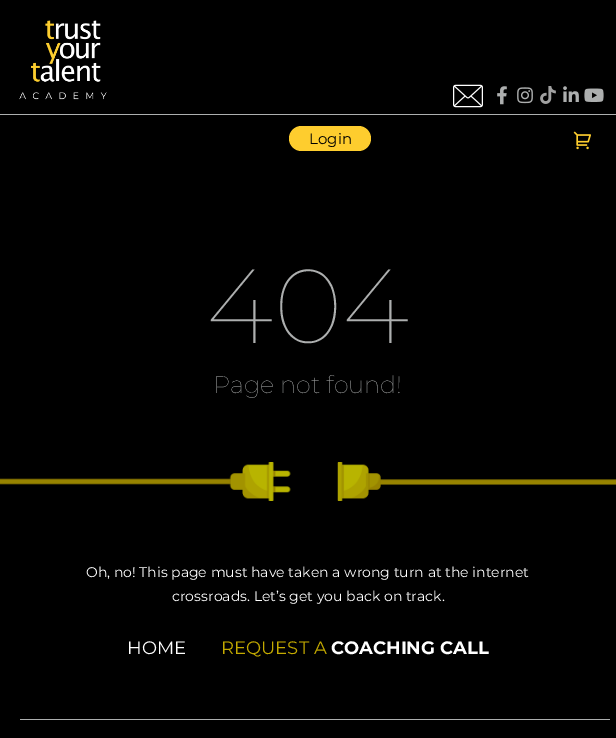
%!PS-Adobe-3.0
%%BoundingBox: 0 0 616 738
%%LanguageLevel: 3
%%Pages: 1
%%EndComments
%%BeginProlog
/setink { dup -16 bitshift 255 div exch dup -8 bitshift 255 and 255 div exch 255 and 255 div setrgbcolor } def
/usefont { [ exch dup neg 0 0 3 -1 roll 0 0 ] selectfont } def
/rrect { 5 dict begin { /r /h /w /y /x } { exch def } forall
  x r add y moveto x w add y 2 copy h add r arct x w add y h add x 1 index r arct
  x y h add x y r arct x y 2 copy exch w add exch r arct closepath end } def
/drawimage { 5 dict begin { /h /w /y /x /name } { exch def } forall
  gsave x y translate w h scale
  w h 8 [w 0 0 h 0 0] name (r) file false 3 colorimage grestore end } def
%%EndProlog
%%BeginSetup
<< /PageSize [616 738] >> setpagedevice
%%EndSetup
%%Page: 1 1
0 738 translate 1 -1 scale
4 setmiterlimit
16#000000 setink
0 0 616 738 rectfill
16#ADAFAF setink
0 114 616 1 rectfill
(img1.raw) 19 20 88 80 drawimage
(img2.raw) 453 84 30 24 drawimage
(img3.raw) 497 86 10 19 drawimage
(img4.raw) 517 87 16 17 drawimage
(img5.raw) 540 86 16 18 drawimage
(img6.raw) 563 86 16 16 drawimage
(img7.raw) 584 88 20 14 drawimage
16#FECD2E setink
289 126 82 25 12.5 rrect fill
/Montserrat-Regular 15 usefont
16#000000 setink
309 144 moveto (Login) show
(img8.raw) 573 131 18 19 drawimage
/Montserrat-Thin 105 usefont
16#ADAFAF setink
206 343 moveto (404) show
/Montserrat-Thin 24 usefont
213 393 moveto (Page not found!) show
(img9.raw) 0 462 616 39 drawimage
/Montserrat-Regular 14 usefont
16#FFFFFF setink
86 577 moveto (Oh, no! This page must have taken a wrong turn at the internet) show
172 601 moveto (crossroads. Let’s get you back on track.) show
/Montserrat-Regular 18 usefont
127 654 moveto (HOME) show
16#C4AA00 setink
221 654 moveto (REQUEST A) show
/Montserrat-Bold 18 usefont
16#FFFFFF setink
331 654 moveto (COACHING CALL) show
16#ADAFAF setink
20 719 590 1 rectfill
showpage
%%EOF
